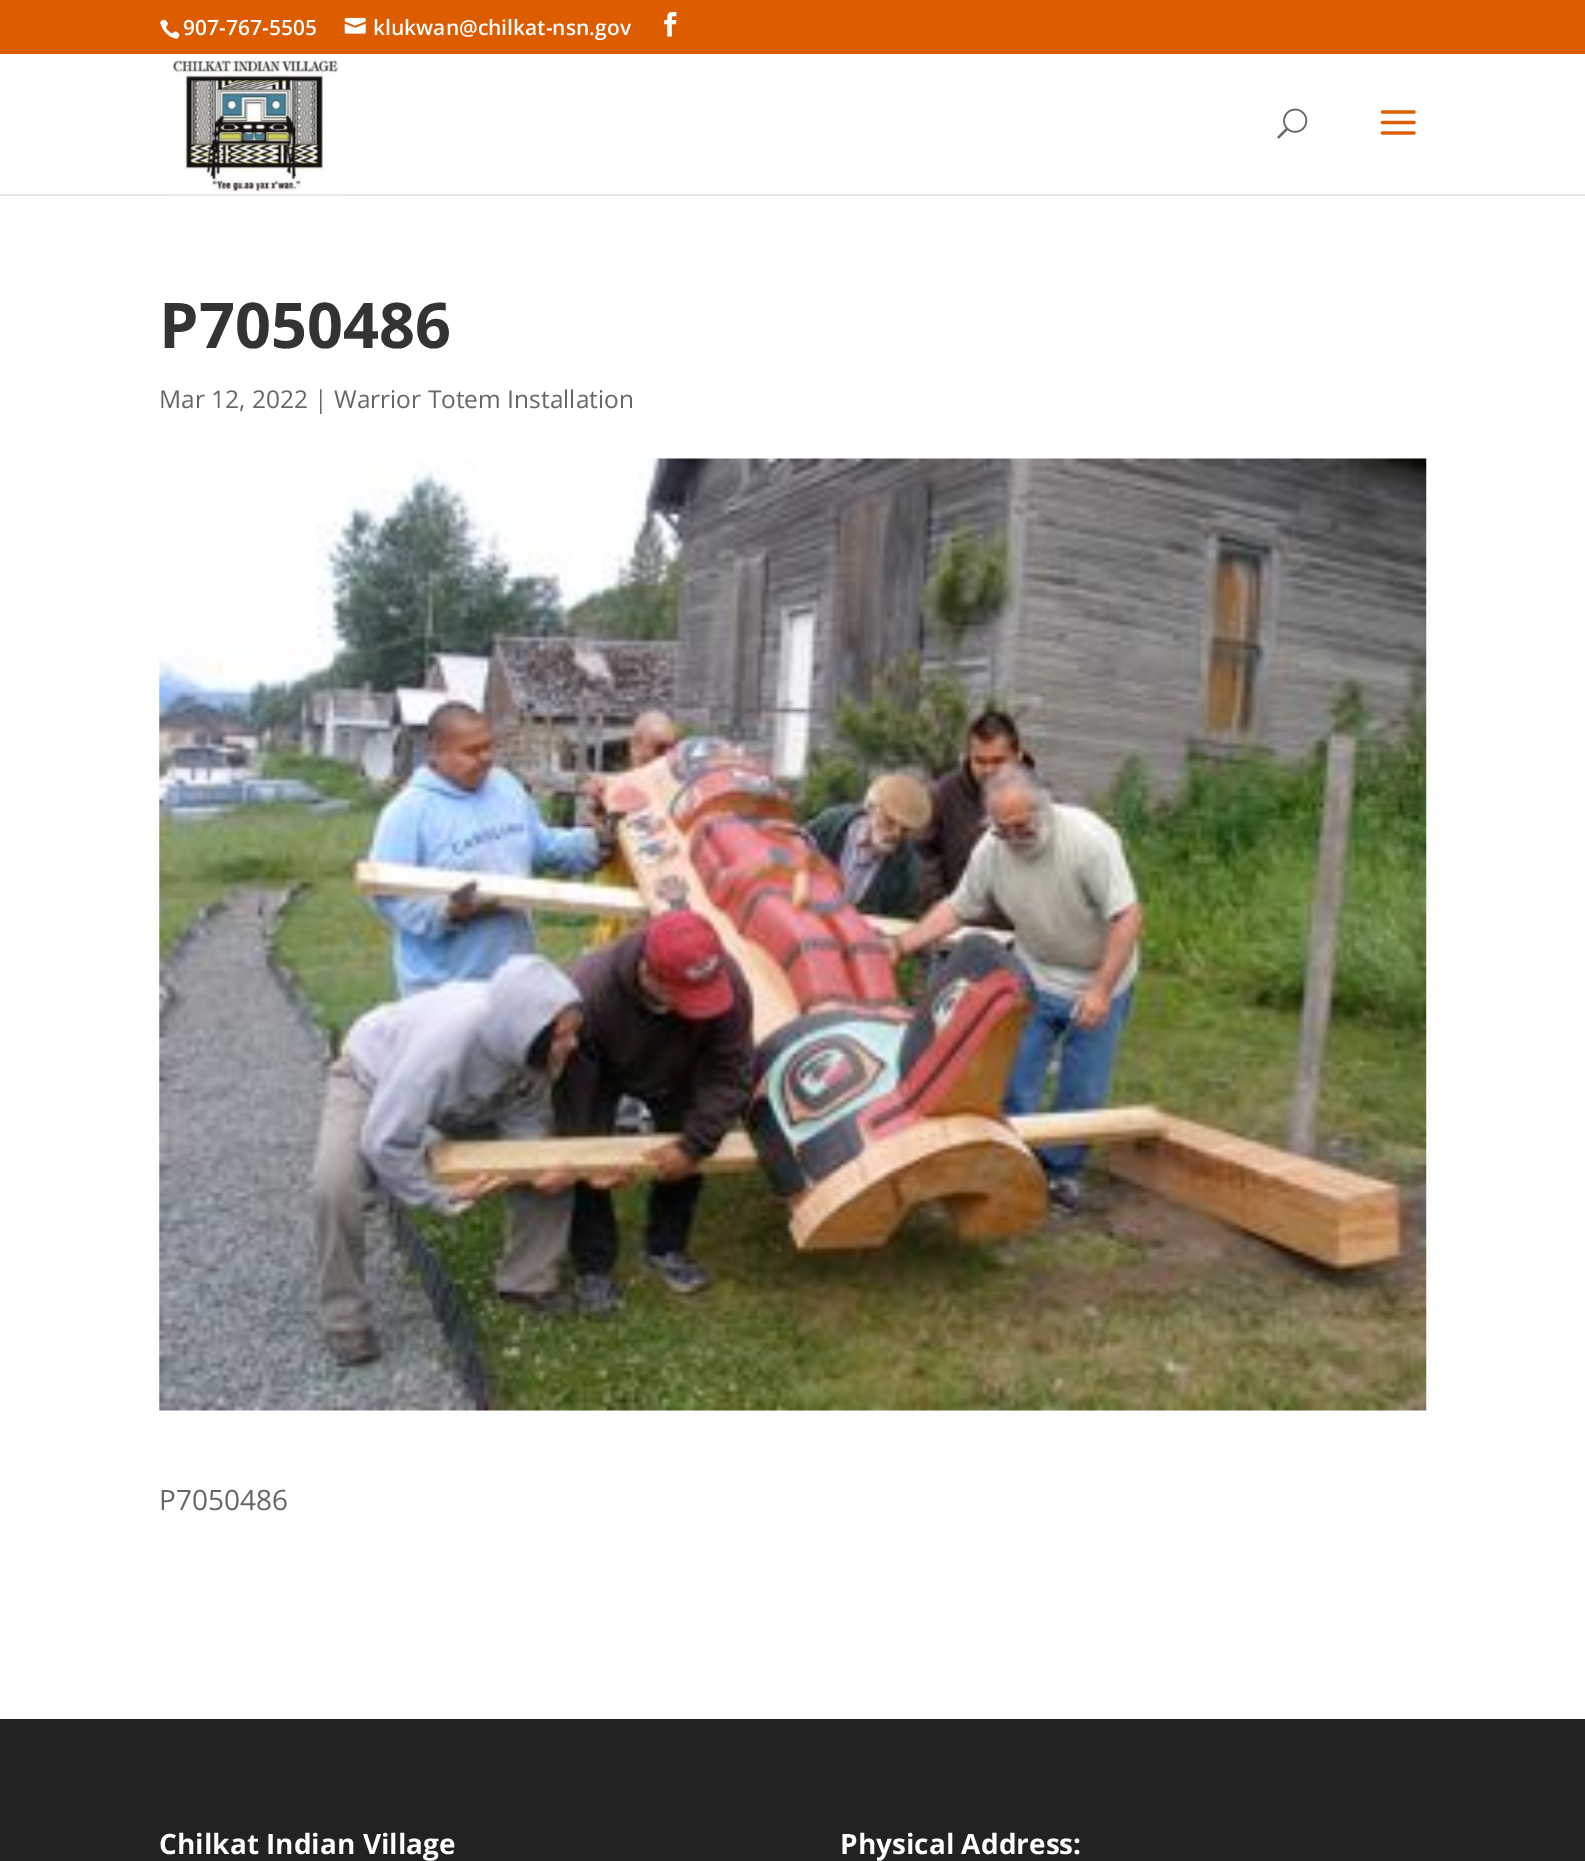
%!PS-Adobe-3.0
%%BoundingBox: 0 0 1585 1861
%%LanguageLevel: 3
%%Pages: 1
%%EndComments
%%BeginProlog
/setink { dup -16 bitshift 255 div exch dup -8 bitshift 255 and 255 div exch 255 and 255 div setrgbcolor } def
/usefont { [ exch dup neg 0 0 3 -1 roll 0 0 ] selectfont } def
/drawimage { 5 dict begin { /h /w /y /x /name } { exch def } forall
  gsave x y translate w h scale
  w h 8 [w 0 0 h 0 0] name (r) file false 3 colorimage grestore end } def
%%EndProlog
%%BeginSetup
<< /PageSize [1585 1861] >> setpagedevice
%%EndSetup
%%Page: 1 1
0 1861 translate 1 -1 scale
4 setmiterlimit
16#FFFFFF setink
0 0 1585 1861 rectfill
16#DD5C00 setink
0 0 1585 54 rectfill
(img1.raw) 160 19 20 20 drawimage
/OpenSans-SemiBold 21 usefont
16#FFFFFF setink
183 35 moveto (907-767-5505) show
(img2.raw) 344 17 22 17 drawimage
373 35 moveto (klukwan@chilkat-nsn.gov) show
(img3.raw) 664 12 13 25 drawimage
16#E6E6E6 setink
0 194 moveto 0 196 lineto 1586 196 lineto 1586 56 lineto 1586 194 lineto closepath fill
(img4.raw) 167 60 176 135 drawimage
(img5.raw) 1277 108 31 31 drawimage
(img6.raw) 1380 110 36 25 drawimage
/OpenSans-Bold 63 usefont
16#333333 setink
159 348 moveto (P7050486) show
/OpenSans-Regular 24.5 usefont
16#666666 setink
159 408 moveto (Mar 12, 2022 | Warrior Totem Installation) show
(img7.raw) 159 458 1268 953 drawimage
/OpenSans-Regular 28 usefont
159 1510 moveto (P7050486) show
16#222222 setink
0 1719 1585 142 rectfill
/OpenSans-Bold 28 usefont
16#FFFFFF setink
159 1854 moveto (Chilkat Indian Village) show
840 1854 moveto (Physical Address:) show
showpage
%%EOF
